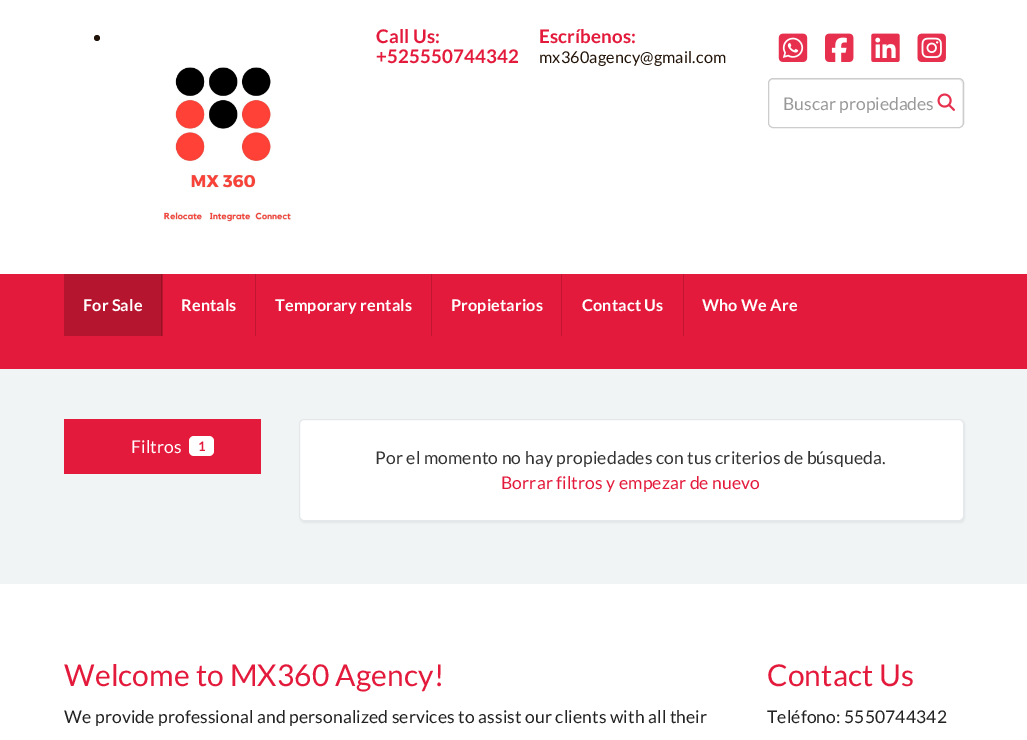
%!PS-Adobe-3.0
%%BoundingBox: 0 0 1027 740
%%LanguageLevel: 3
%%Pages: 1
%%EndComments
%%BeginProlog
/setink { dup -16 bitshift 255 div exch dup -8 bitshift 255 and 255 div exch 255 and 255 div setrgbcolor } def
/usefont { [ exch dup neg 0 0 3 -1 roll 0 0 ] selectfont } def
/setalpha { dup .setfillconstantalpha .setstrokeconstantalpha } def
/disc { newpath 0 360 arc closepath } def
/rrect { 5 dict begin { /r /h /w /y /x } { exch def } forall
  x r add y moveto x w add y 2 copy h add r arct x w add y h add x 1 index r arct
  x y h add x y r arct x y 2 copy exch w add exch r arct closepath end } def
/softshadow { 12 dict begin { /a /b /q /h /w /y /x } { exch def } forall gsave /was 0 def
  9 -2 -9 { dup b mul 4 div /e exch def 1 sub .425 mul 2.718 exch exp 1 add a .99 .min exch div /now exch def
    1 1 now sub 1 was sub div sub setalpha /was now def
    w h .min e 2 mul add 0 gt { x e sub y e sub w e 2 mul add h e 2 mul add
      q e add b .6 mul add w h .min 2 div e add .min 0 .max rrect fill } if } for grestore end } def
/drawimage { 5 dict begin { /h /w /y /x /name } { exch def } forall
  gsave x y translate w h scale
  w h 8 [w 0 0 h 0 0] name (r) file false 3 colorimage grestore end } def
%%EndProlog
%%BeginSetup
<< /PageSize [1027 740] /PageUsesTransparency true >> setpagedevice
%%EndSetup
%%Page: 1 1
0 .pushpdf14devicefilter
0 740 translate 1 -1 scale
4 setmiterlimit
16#F1F4F5 setink
0 0 1027 740 rectfill
16#FFFFFF setink
0 0 1027 274 rectfill
16#221308 setink
97 38 3 disc fill
(img1.raw) 163 67 128 155 drawimage
/Lato-Bold 18.75 usefont
16#E31A3B setink
376 43 moveto 0.12 0 (Call Us:) ashow
376 63 moveto 0.12 0 (+525550744342) ashow
539 43 moveto 0.12 0 (Escríbenos:) ashow
/Lato-Regular 16.25 usefont
16#221308 setink
539 63 moveto 0.12 0 (mx360agency@gmail.com) ashow
(img2.raw) 778 33 30 29 drawimage
(img3.raw) 825 33 29 29 drawimage
(img4.raw) 871 33 29 29 drawimage
(img5.raw) 917 33 29 29 drawimage
16#ECECEC setink
772 80 moveto 959 80 lineto 961 80 962 82 962 84 curveto 962 125 lineto 963 124 963 123 963 122 curveto 963 83 lineto 963 81 961 79 959 79 curveto 773 79 lineto 771 79 769 81 769 83 curveto 769 84 lineto 769 82 770 80 772 80 curveto closepath fill
16#CCCCCC setink
768.5 78.5 195 49 4.5 rrect stroke
/Lato-Regular 17.5 usefont
16#999999 setink
783 110 moveto (Buscar propiedades) show
(img6.raw) 937 93 18 18 drawimage
[
    [0 274 1027 95 16#E31A3B]
    [64 274 99 62 16#B6152F]
    [161 274 1 62 16#9B1228]
] { aload pop setink rectfill } forall
/Lato-Bold 16.25 usefont
16#FFFFFF setink
83 311 moveto 0.12 0 (For Sale) ashow
16#C11632 setink
255 274 1 62 rectfill
16#FFFFFF setink
181 311 moveto 0.12 0 (Rentals) ashow
16#C11632 setink
431 274 1 62 rectfill
16#FFFFFF setink
275 311 moveto 0.12 0 (Temporary rentals) ashow
16#C11632 setink
561 274 1 62 rectfill
16#FFFFFF setink
451 311 moveto 0.12 0 (Propietarios) ashow
16#C11632 setink
683 274 1 62 rectfill
16#FFFFFF setink
582 311 moveto 0.12 0 (Contact Us) ashow
702 311 moveto 0.12 0 (Who We Are) ashow
16#E31A3B setink
64 419 197 55 rectfill
/Lato-Regular 17.5 usefont
16#FFFFFF setink
131 453 moveto 0.12 0 (Filtros) ashow
189 436 25 20 5 rrect fill
/Lato-Bold 13 usefont
16#E31A3B setink
198 451 moveto 0.12 0 (1) ashow
16#000000 setink
300 420 665 103 5 1 0.05 softshadow
16#FFFFFF setink
299.5 419.5 664 101 4.5 rrect gsave fill grestore
16#E4E8EB setink
stroke
/Lato-Regular 17.5 usefont
16#333333 setink
375 464 moveto 0.12 0 (Por el momento no hay propiedades con tus criterios de búsqueda.) ashow
16#E31A3B setink
501 489 moveto 0.12 0 (Borrar filtros y empezar de nuevo) ashow
16#FFFFFF setink
0 584 1027 156 rectfill
/Lato-Regular 30 usefont
16#E31A3B setink
64 686 moveto 0.12 0 (Welcome to MX360 Agency!) ashow
/Lato-Regular 17.5 usefont
16#222222 setink
64 723 moveto 0.12 0 (We provide professional and personalized services to assist our clients with all their) ashow
/Lato-Regular 30 usefont
16#E31A3B setink
767 686 moveto 0.12 0 (Contact Us) ashow
/Lato-Regular 17.5 usefont
16#222222 setink
767 723 moveto 0.12 0 (Teléfono: 5550744342) ashow
.poppdf14devicefilter showpage
%%EOF
